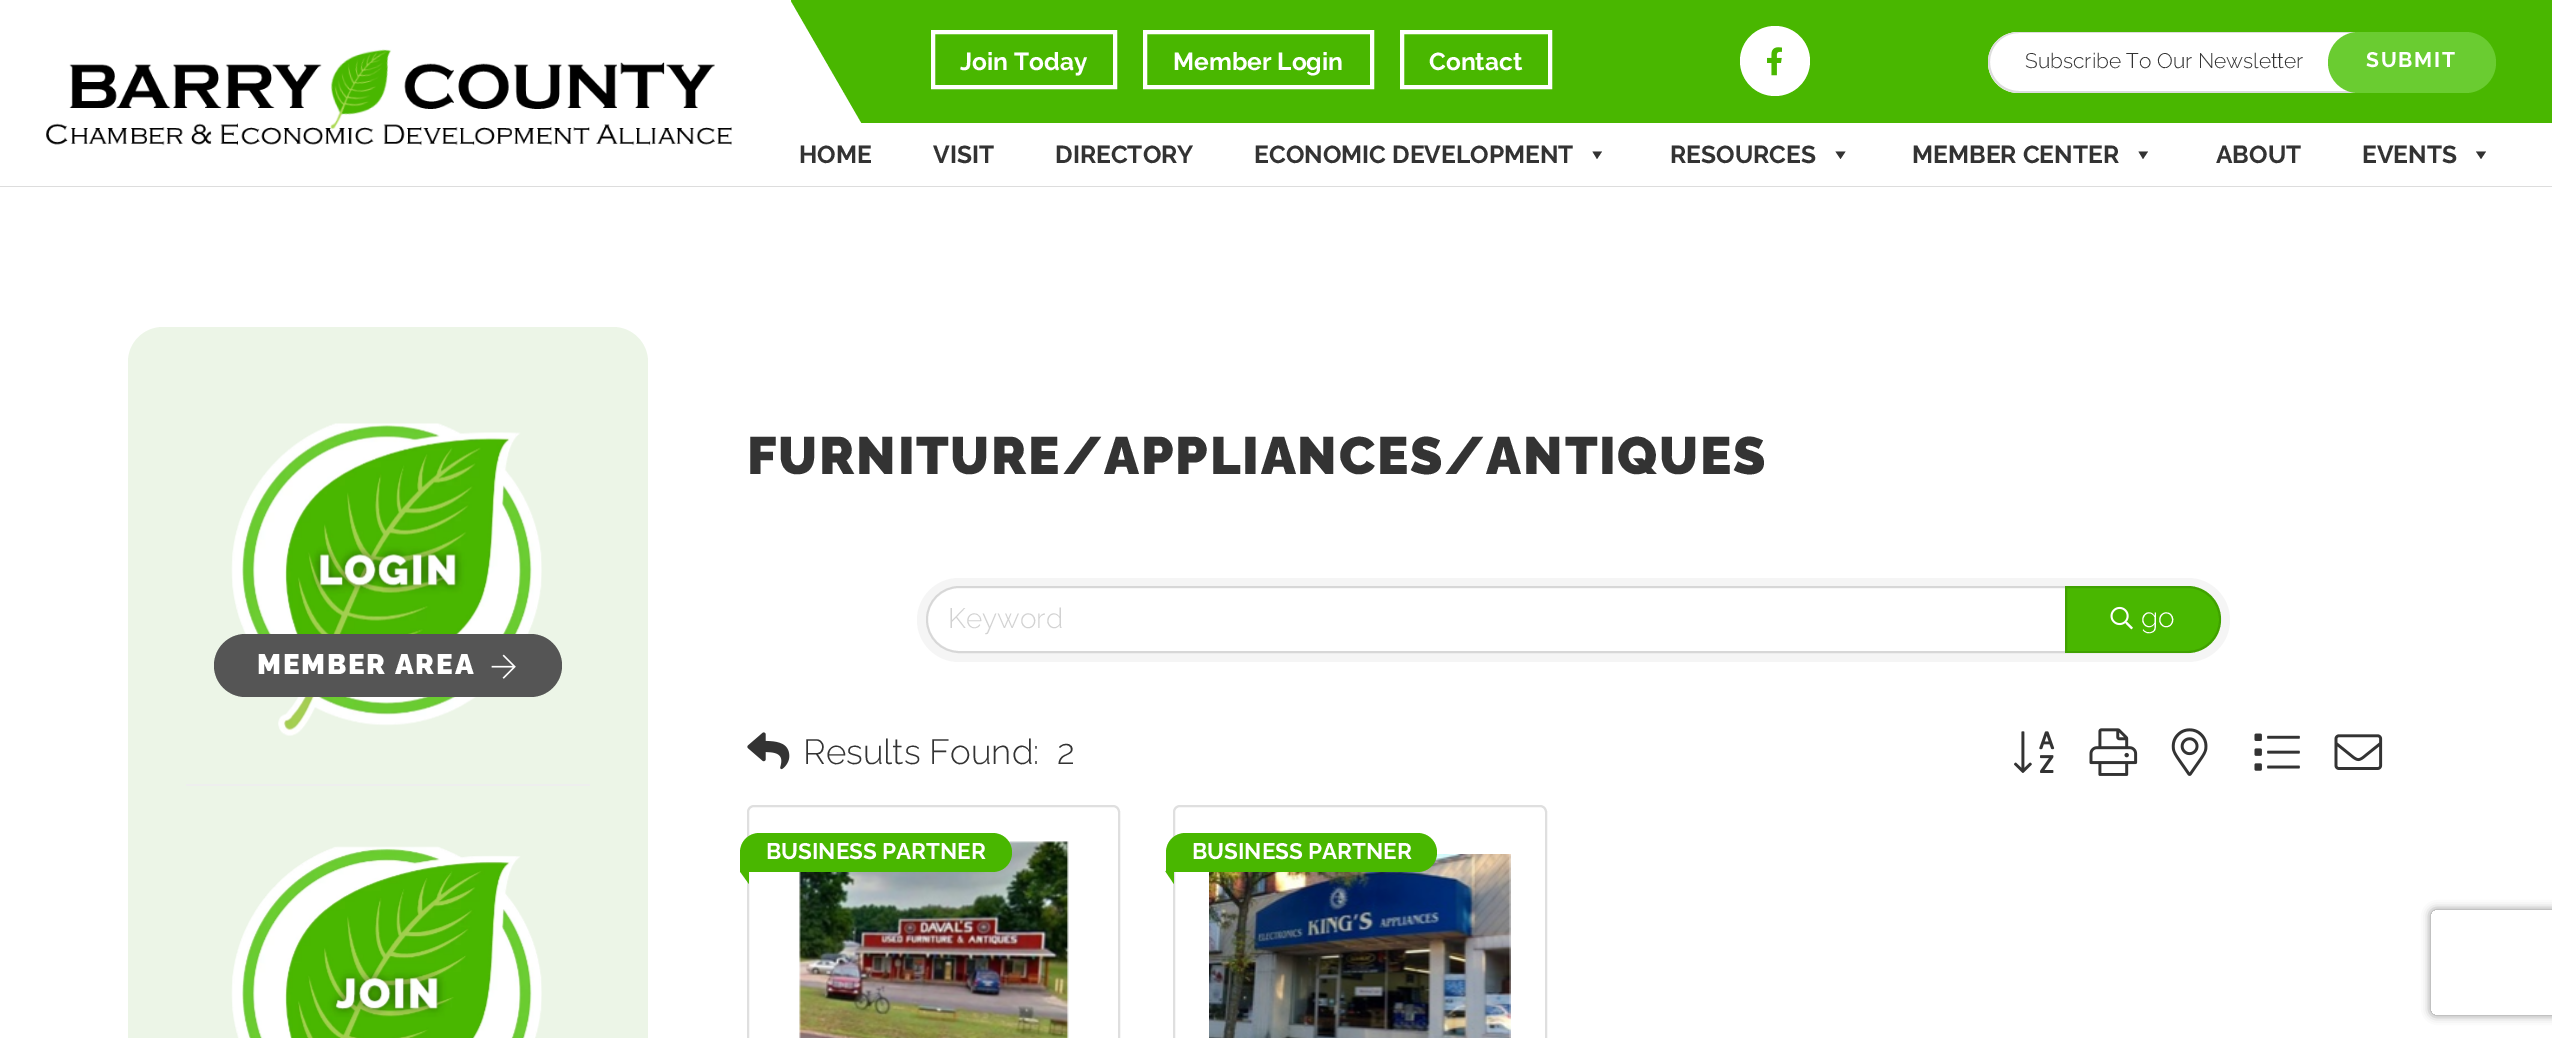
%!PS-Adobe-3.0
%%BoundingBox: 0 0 2552 1038
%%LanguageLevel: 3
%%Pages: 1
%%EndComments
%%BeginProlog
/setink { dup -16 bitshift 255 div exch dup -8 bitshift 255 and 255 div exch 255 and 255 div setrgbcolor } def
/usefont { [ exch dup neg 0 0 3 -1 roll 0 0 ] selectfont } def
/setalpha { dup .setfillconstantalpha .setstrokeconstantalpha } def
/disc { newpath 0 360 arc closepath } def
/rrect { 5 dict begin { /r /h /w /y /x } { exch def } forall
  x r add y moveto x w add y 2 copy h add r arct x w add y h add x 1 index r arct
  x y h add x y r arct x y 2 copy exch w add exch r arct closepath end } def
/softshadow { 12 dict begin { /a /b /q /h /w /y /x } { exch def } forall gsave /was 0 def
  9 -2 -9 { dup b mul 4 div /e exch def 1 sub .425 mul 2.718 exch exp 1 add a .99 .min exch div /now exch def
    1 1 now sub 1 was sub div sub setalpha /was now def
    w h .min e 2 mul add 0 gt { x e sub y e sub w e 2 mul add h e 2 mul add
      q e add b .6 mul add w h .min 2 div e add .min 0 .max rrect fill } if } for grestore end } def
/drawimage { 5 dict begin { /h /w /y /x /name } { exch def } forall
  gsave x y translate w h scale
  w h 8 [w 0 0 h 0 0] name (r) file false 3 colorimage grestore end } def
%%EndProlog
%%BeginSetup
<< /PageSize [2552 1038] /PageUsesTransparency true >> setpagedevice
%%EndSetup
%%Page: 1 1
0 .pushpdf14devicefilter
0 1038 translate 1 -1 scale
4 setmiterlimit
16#FFFFFF setink
0 0 2552 1038 rectfill
16#DDDDDD setink
0 186 2552 1 rectfill
(img1.raw) 46 49 686 97 drawimage
16#49B700 setink
791 0 1761 123 rectfill
gsave
791 0 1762 123 rectclip
16#FFFFFF setink
790 0 moveto 1672 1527 lineto 1566 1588 lineto 684 61 lineto closepath fill
grestore
16#FFFFFF setink
4 setlinewidth
933 32 182 55 rectstroke
/Raleway-Bold 24.5 usefont
960 70 moveto (Join Today) show
1145 32 227 55 rectstroke
1173 70 moveto (Member Login) show
1402 32 148 55 rectstroke
1429 70 moveto (Contact) show
1775 61 35 disc fill
(img2.raw) 1767 47 15 29 drawimage
2018.5 32 moveto 2380 32 lineto 2380 93 lineto 2018.5 93 lineto 2001.5 93 1988 79.5 1988 62.5 curveto 1988 45.5 2001.5 32 2018.5 32 curveto closepath fill
16#DDDDDD setink
2019 32 moveto 2380 32 lineto 2380 93 lineto 2019 93 lineto 2002 93 1988 79 1988 62 curveto 1988 45 2002 32 2019 32 curveto closepath 2019 33 moveto 2380 33 lineto 2380 91 lineto 2019 91 lineto 2003 91 1990 78 1990 62 curveto 1990 46 2003 33 2019 33 curveto closepath eofill
/Raleway-Light 21 usefont
16#333333 setink
2025 68 moveto (Subscribe To Our Newsletter) show
16#6ACC31 setink
2328 32 168 61 30.5 rrect fill
/Raleway-Bold 21 usefont
16#FFFFFF setink
2366 67 moveto 1.75 0 (SUBMIT) ashow
/Raleway-Bold 24.5 usefont
16#333333 setink
[
    [(HOME) 799 163]
    [(VISIT) 933 163]
    [(DIRECTORY) 1055 163]
    [(ECONOMIC DEVELOPMENT) 1254 163]
] { aload pop moveto show } forall
1602 151.5 moveto 1597 159 lineto 1592.5 151.5 lineto closepath fill
1670 163 moveto (RESOURCES) show
1845.5 151.5 moveto 1840.5 159 lineto 1835.5 151.5 lineto closepath fill
1912 163 moveto (MEMBER CENTER) show
2148 151.5 moveto 2143 159 lineto 2138.5 151.5 lineto closepath fill
2216 163 moveto (ABOUT) show
2362 163 moveto (EVENTS) show
2486 151.5 moveto 2481 159 lineto 2476 151.5 lineto closepath fill
16#ECF5E7 setink
128 327 520 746 35 rrect fill
(img3.raw) 231 423 311 313 drawimage
16#555555 setink
214 634 348 63 31.5 rrect fill
/Raleway-Black 28 usefont
16#FFFFFF setink
257 674 moveto 1.75 0 (MEMBER AREA) ashow
(img4.raw) 491 654 25 25 drawimage
16#EEEEEE setink
186 784 404 2 rectfill
(img5.raw) 231 846 311 192 drawimage
/Raleway-Black 52.5 usefont
16#333333 setink
747 474 moveto 1.75 0 (FURNITURE/APPLIANCES/ANTIQUES) ashow
16#F5F5F5 setink
917 578 1313 84 42 rrect fill
16#FFFFFF setink
959.5 588 moveto 2064 588 lineto 2064.5 588 2065 588.5 2065 589 curveto 2065 650 lineto 2065 650.5 2064.5 651 2064 651 curveto 959.5 651 lineto 942 651 928 637 928 619.5 curveto 928 602 942 588 959.5 588 curveto closepath fill
0.12 setalpha
16#000000 setink
2 setlinewidth
959.5 587 moveto 2064.5 587 lineto 2065.5 587 2066 587.5 2066 588.5 curveto 2066 650.5 lineto 2066 651.5 2065.5 652 2064.5 652 curveto 959.5 652 lineto 941.5 652 927 637.5 927 619.5 curveto 927 601.5 941.5 587 959.5 587 curveto closepath stroke
/Raleway-Light 28 usefont
1 setalpha
16#D2D2D2 setink
948 628 moveto (Keyword) show
16#49B700 setink
2065 586 moveto 2187.5 586 lineto 2206 586 2221 601 2221 619.5 curveto 2221 638 2206 653 2187.5 653 curveto 2065 653 lineto closepath fill
0.12 setalpha
16#000000 setink
2066 587 moveto 2187.5 587 lineto 2205.5 587 2220 601.5 2220 619.5 curveto 2220 637.5 2205.5 652 2187.5 652 curveto 2066 652 lineto closepath stroke
1 setalpha
(img6.raw) 2110 606 23 24 drawimage
16#FFFFFF setink
2141 627 moveto (go) show
(img7.raw) 747 732 43 38 drawimage
/Raleway-Light 35 usefont
16#333333 setink
803 764 moveto (Results Found:) show
1057 764 moveto (2) show
(img8.raw) 2014 731 41 42 drawimage
(img9.raw) 2089 728 49 48 drawimage
(img10.raw) 2171 728 37 48 drawimage
(img11.raw) 2254 733 46 38 drawimage
(img12.raw) 2334 734 49 36 drawimage
16#DFDFDF setink
748 806 371 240 6 rrect stroke
(img13.raw) 799 841 270 197 drawimage
16#49B700 setink
759.5 833 moveto 992.5 833 lineto 1003.5 833 1012 841.5 1012 852.5 curveto 1012 863.5 1003.5 872 992.5 872 curveto 741 872 lineto 740.5 872 740 871.5 740 871 curveto 740 852.5 lineto 740 841.5 748.5 833 759.5 833 curveto closepath fill
/Raleway-Bold 22.5 usefont
16#FFFFFF setink
766 859 moveto (BUSINESS PARTNER) show
16#49B700 setink
749 859 moveto 749 884 lineto 740 871.5 lineto closepath fill
16#DFDFDF setink
1174 806 372 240 6 rrect stroke
(img14.raw) 1209 854 302 184 drawimage
16#49B700 setink
1185.5 833 moveto 1417.5 833 lineto 1428.5 833 1437 841.5 1437 852.5 curveto 1437 863.5 1428.5 872 1417.5 872 curveto 1167 872 lineto 1166.5 872 1166 871.5 1166 871 curveto 1166 852.5 lineto 1166 841.5 1174.5 833 1185.5 833 curveto closepath fill
16#FFFFFF setink
1192 859 moveto (BUSINESS PARTNER) show
16#49B700 setink
1174 859 moveto 1174 884 lineto 1165.5 871.5 lineto closepath fill
gsave
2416 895 moveto 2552 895 lineto 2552 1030 lineto 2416 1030 lineto closepath 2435 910 moveto 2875 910 lineto 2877 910 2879 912 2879 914 curveto 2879 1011 lineto 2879 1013 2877 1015 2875 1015 curveto 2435 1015 lineto 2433 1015 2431 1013 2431 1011 curveto 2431 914 lineto 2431 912 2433 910 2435 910 curveto closepath eoclip newpath
16#808080 setink
2431 910 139 105 4 4.5 1 softshadow
grestore
.poppdf14devicefilter showpage
%%EOF
